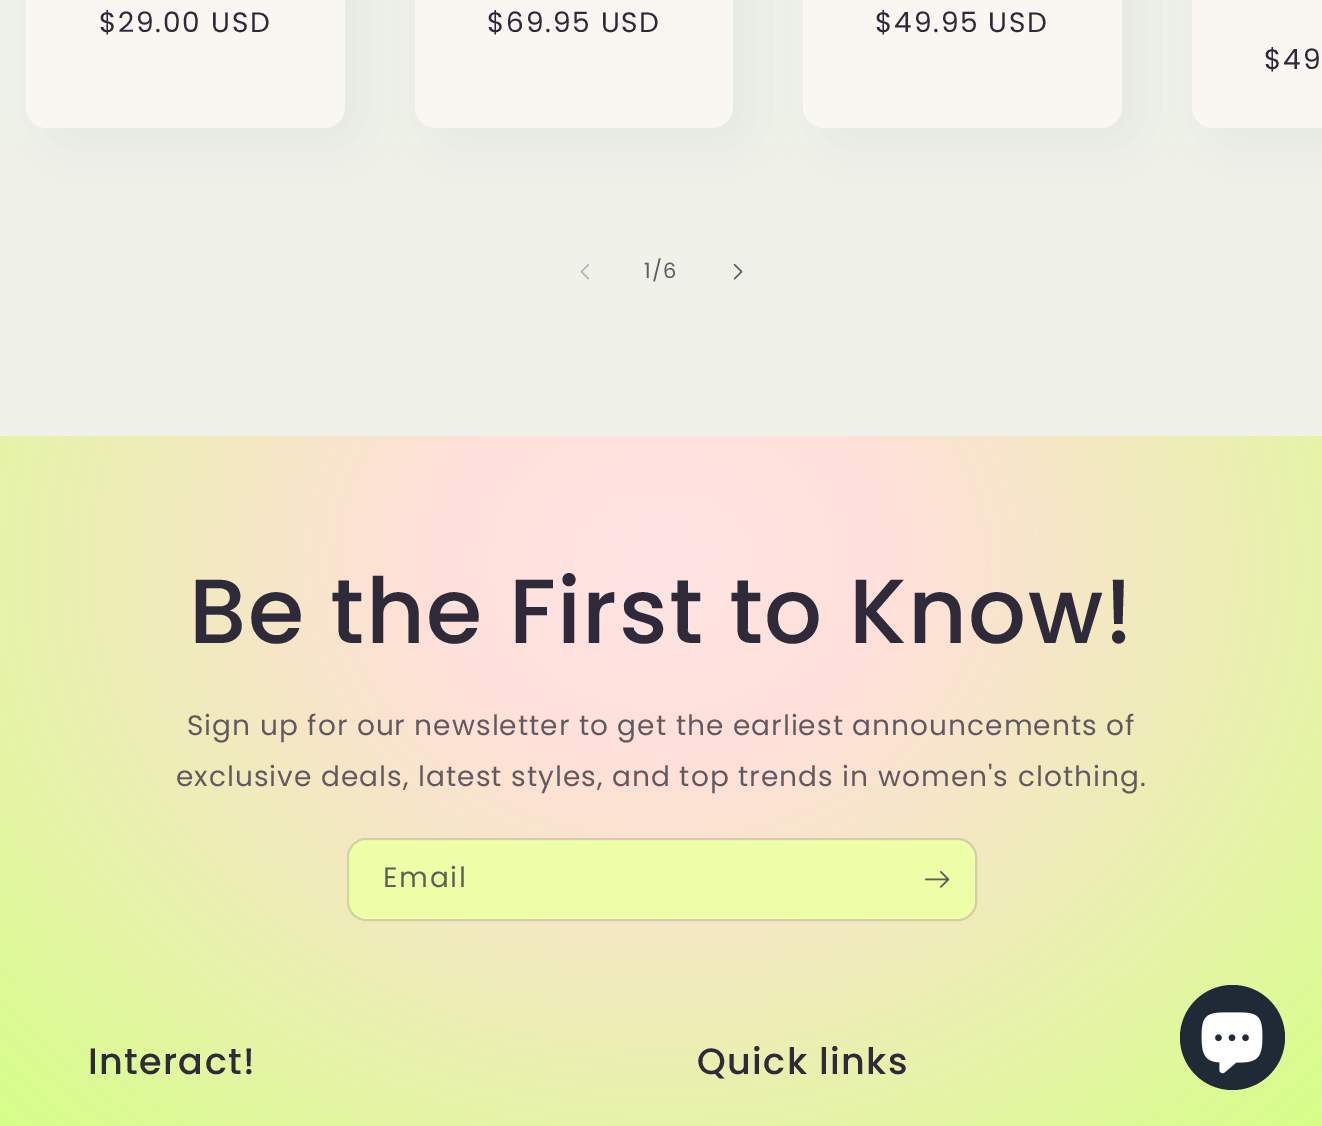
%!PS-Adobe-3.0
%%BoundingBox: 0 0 1322 1126
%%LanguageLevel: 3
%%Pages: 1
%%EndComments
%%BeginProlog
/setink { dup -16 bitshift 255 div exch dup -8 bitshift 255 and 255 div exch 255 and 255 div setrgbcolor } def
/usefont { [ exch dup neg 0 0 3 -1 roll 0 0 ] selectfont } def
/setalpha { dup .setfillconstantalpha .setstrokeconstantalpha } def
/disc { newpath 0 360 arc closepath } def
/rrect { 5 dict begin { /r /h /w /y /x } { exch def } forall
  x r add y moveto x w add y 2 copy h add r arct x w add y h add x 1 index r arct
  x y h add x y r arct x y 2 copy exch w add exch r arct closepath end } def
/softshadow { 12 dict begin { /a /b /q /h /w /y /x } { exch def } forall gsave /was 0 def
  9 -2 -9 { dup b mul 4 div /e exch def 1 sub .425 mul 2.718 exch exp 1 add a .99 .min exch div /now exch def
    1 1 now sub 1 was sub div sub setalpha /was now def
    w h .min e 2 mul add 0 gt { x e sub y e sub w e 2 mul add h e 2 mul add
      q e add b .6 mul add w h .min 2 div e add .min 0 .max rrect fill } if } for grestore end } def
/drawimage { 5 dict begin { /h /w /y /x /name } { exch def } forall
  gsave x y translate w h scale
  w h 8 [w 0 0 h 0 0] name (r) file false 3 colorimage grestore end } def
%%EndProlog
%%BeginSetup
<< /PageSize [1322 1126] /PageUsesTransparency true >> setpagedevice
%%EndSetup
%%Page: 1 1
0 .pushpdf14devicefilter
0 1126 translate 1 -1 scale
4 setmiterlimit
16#FFFFFF setink
0 0 1322 1126 rectfill
gsave 0 0 moveto 1322 0 lineto 1322 436 lineto 0 436 lineto closepath clip newpath
<< /ShadingType 2 /ColorSpace /DeviceRGB /Coords [661 0 662 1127] /Extend [true true] /Function << /FunctionType 2 /Domain [0 1] /C0 [0.941 0.957 0.925] /C1 [0.945 0.922 0.886] /N 1 >> >> shfill grestore
16#2E2A39 setink
44 -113 318 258 21 30.5 0.05 softshadow
432 -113 319 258 21 30.5 0.05 softshadow
16#FAF7F2 setink
26 -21 319 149 21 rrect fill
/Poppins-Regular 28 usefont
16#2E2A39 setink
99 32 moveto 1.75 0 ($29.00 USD) ashow
821 -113 318 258 21 30.5 0.05 softshadow
16#FAF7F2 setink
415 -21 318 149 21 rrect fill
16#2E2A39 setink
487 32 moveto 1.75 0 ($69.95 USD) ashow
1209 -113 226 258 21 30.5 0.05 softshadow
16#FAF7F2 setink
803 -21 319 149 21 rrect fill
16#2E2A39 setink
875 32 moveto 1.75 0 ($49.95 USD) ashow
16#FAF7F2 setink
1213 -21 moveto 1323 -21 lineto 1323 128 lineto 1213 128 lineto 1201.5 128 1192 118.5 1192 107 curveto 1192 0 lineto 1192 -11.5 1201.5 -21 1213 -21 curveto closepath fill
16#2E2A39 setink
1264 69 moveto 1.75 0 ($49) ashow
(img1.raw) 580 263 10 17 drawimage
/Poppins-Regular 21 usefont
16#5F5C65 setink
644 278 moveto 1 0 (1/6) ashow
(img2.raw) 733 263 10 17 drawimage
gsave 0 436 moveto 1322 436 lineto 1322 1012 lineto 0 1012 lineto closepath clip newpath 662 564 translate 936 797 scale
<< /ShadingType 3 /ColorSpace /DeviceRGB /Coords [0 0 0 0 0 1] /Extend [true true] /Function << /FunctionType 3 /Domain [0 1] /Functions [<< /FunctionType 2 /Domain [0 1] /C0 [1 0.898 0.898] /C1 [1 0.878 0.855] /N 1 >> << /FunctionType 2 /Domain [0 1] /C0 [1 0.878 0.855] /C1 [0.843 1 0.537] /N 1 >>] /Bounds [0.25] /Encode [0 1 0 1] >> >> shfill grestore
/Poppins-Medium 91 usefont
16#2E2A39 setink
189 643 moveto 1.4 0 (Be the First to Know!) ashow
/Poppins-Regular 28 usefont
16#61595F setink
187 735 moveto 1.05 0 (Sign up for our newsletter to get the earliest announcements of) ashow
176 786 moveto 1.05 0 (exclusive deals, latest styles, and top trends in women's clothing.) ashow
16#EDFFA7 setink
348 840 627 79 18 rrect fill
0.15 setalpha
16#2E2A39 setink
2 setlinewidth
348 839 628 81 18 rrect stroke
1 setalpha
16#5E5F55 setink
383 887 moveto 1.75 0 (Email) ashow
(img3.raw) 925 871 25 17 drawimage
gsave 0 1012 moveto 1322 1012 lineto 1322 1126 lineto 0 1126 lineto closepath clip newpath 662 564 translate 936 797 scale
<< /ShadingType 3 /ColorSpace /DeviceRGB /Coords [0 0 0 0 0 1] /Extend [true true] /Function << /FunctionType 3 /Domain [0 1] /Functions [<< /FunctionType 2 /Domain [0 1] /C0 [1 0.898 0.898] /C1 [1 0.878 0.855] /N 1 >> << /FunctionType 2 /Domain [0 1] /C0 [1 0.878 0.855] /C1 [0.843 1 0.537] /N 1 >>] /Bounds [0.25] /Encode [0 1 0 1] >> >> shfill grestore
/Poppins-Medium 36.5 usefont
16#2E2A39 setink
88 1074 moveto 1.4 0 (Interact!) ashow
697 1074 moveto 1.4 0 (Quick links) ashow
16#202A36 setink
1232.5 1037.5 52.5 disc fill
(img4.raw) 1201 1012 62 62 drawimage
.poppdf14devicefilter showpage
%%EOF
